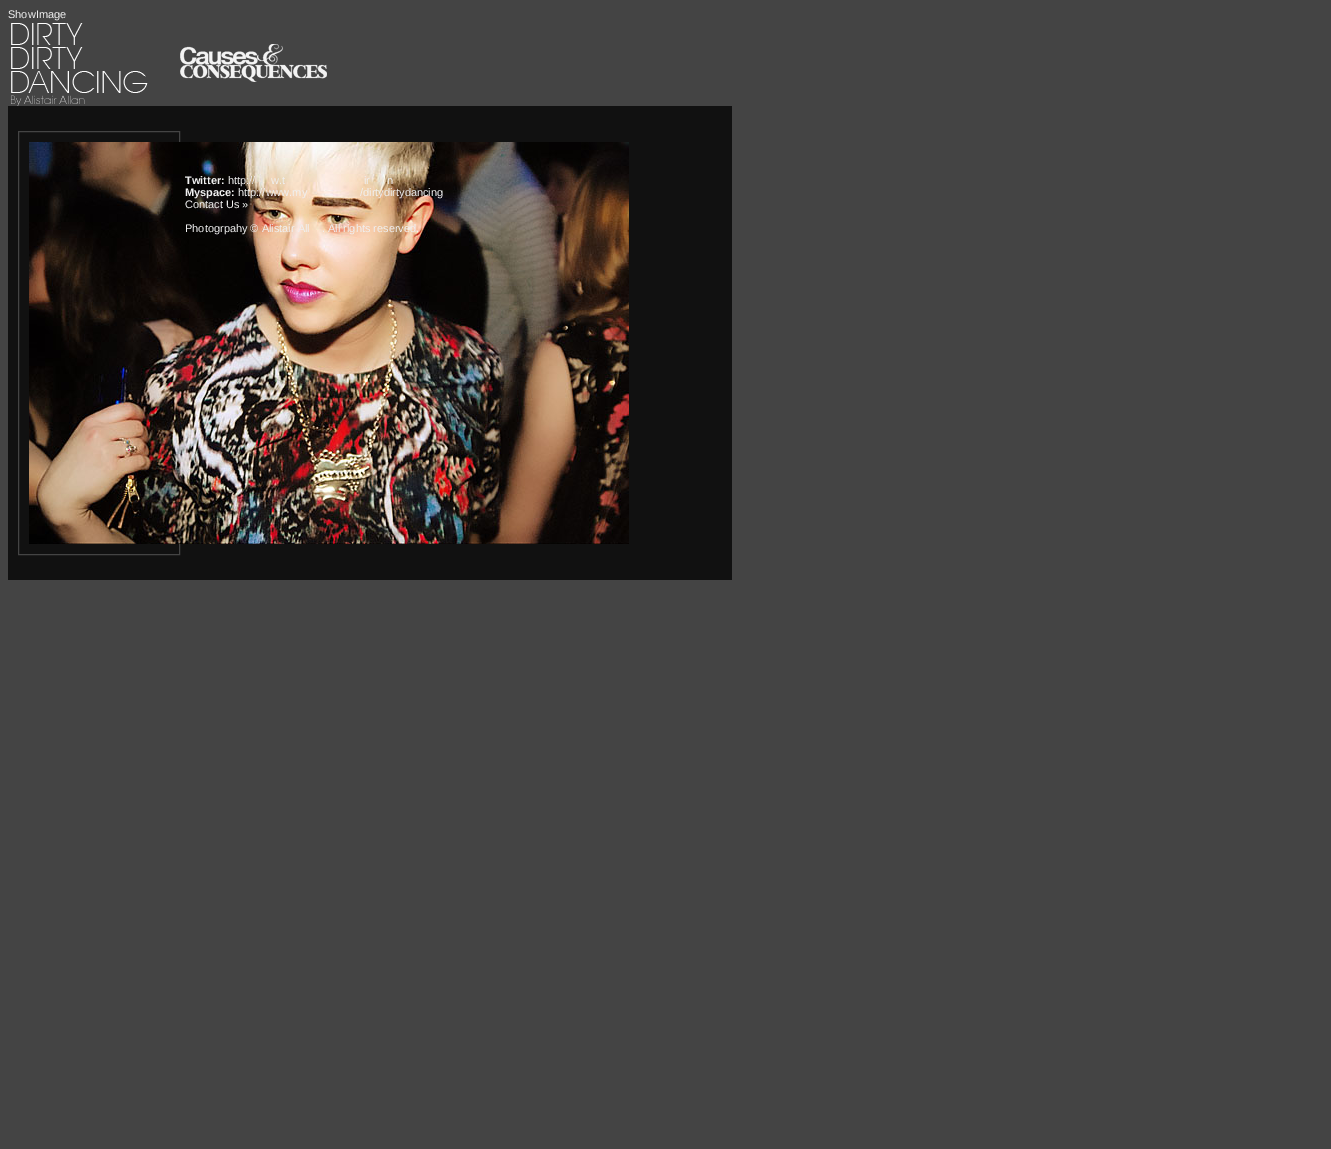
%!PS-Adobe-3.0
%%BoundingBox: 0 0 1331 1149
%%LanguageLevel: 3
%%Pages: 1
%%EndComments
%%BeginProlog
/setink { dup -16 bitshift 255 div exch dup -8 bitshift 255 and 255 div exch 255 and 255 div setrgbcolor } def
/usefont { [ exch dup neg 0 0 3 -1 roll 0 0 ] selectfont } def
/drawimage { 5 dict begin { /h /w /y /x /name } { exch def } forall
  gsave x y translate w h scale
  w h 8 [w 0 0 h 0 0] name (r) file false 3 colorimage grestore end } def
%%EndProlog
%%BeginSetup
<< /PageSize [1331 1149] >> setpagedevice
%%EndSetup
%%Page: 1 1
0 1149 translate 1 -1 scale
4 setmiterlimit
16#444444 setink
0 0 1331 1149 rectfill
/LiberationSans-Regular 11 usefont
16#F0F0F0 setink
8 18 moveto (ShowImage) show
(img1.raw) 11 23 137 83 drawimage
(img2.raw) 180 44 147 38 drawimage
16#111111 setink
8 106 724 474 rectfill
16#444444 setink
18.5 131.5 161 423 rectstroke
(img3.raw) 29 142 600 402 drawimage
/LiberationSans-Bold 11 usefont
16#F0F0F0 setink
185 184 moveto (Twitter:) show
/LiberationSans-Regular 11 usefont
[
    [(http://) 228 184]
    [(w.t) 271 184]
    [(ir) 364 184]
    [(n) 387 184]
] { aload pop moveto show } forall
/LiberationSans-Bold 11 usefont
185 196 moveto (Myspace:) show
/LiberationSans-Regular 11 usefont
[
    [(http://www.my) 238 196]
    [(/dirtydirtydancing) 360 196]
    [(Contact Us ») 185 208]
    [(Photogrpahy © Alistair All) 185 232]
    [(. All rights reserved.) 322 232]
] { aload pop moveto show } forall
showpage
%%EOF
